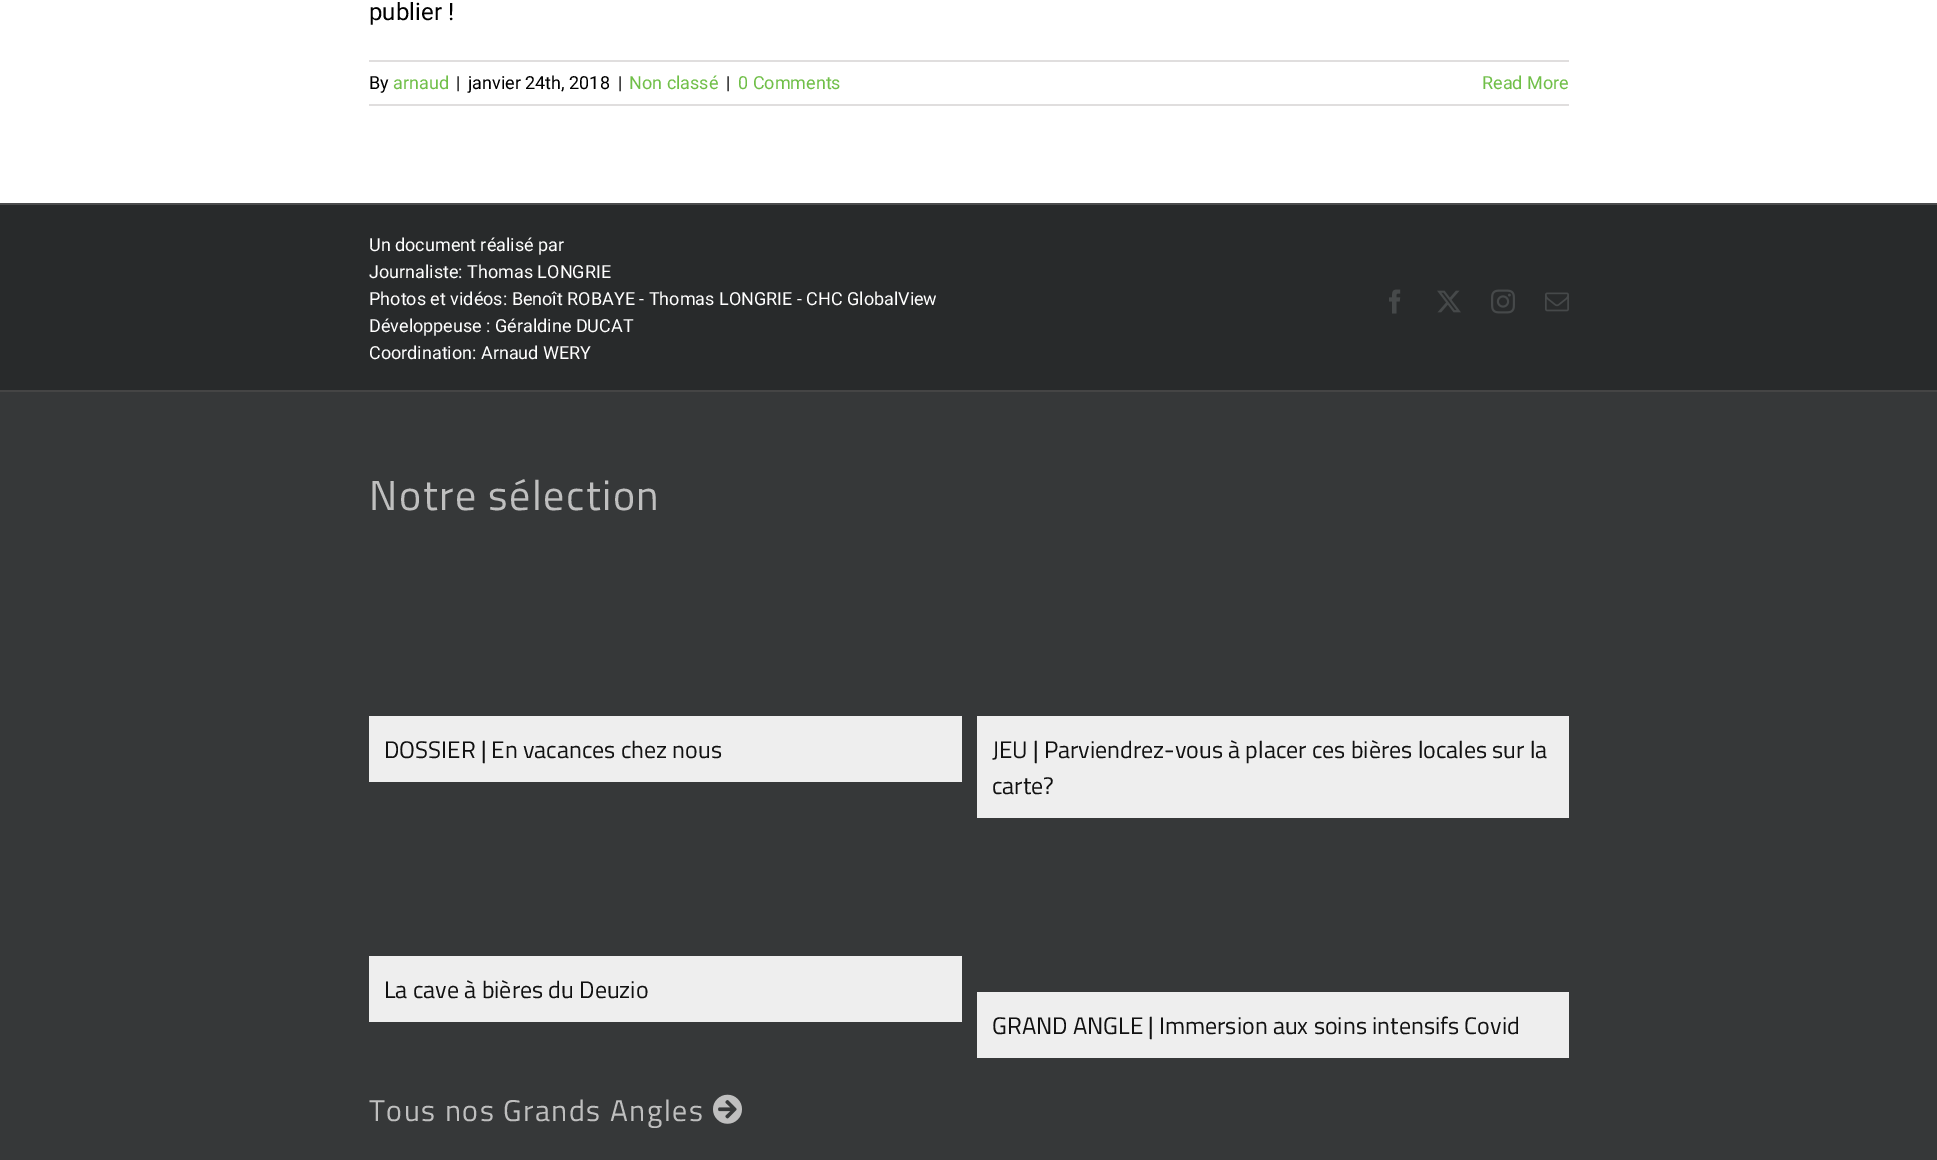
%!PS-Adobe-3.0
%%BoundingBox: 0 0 1937 1160
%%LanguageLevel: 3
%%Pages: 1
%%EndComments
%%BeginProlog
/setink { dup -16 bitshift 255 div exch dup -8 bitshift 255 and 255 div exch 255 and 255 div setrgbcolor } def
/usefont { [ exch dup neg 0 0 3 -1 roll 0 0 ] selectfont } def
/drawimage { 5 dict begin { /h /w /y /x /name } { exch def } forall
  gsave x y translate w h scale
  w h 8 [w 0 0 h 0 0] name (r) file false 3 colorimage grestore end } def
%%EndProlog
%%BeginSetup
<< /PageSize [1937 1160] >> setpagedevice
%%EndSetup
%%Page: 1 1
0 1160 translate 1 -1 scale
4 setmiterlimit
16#FFFFFF setink
0 0 1937 1160 rectfill
/Roboto-Regular 24 usefont
16#000000 setink
369 20 moveto (publier !) show
16#E0DEDE setink
369 60 1200 2 rectfill
369 104 1200 2 rectfill
/Roboto-Regular 18 usefont
16#000000 setink
369 89 moveto (By) show
16#70BF48 setink
393 89 moveto (arnaud) show
16#000000 setink
[
    [(|) 456 89]
    [(janvier 24th, 2018) 468 89]
    [(|) 618 89]
] { aload pop moveto show } forall
16#70BF48 setink
629 89 moveto (Non classé) show
16#000000 setink
726 89 moveto (|) show
16#70BF48 setink
738 89 moveto (0 Comments) show
1482 89 moveto (Read More) show
16#282A2B setink
0 205 1937 185 rectfill
16#4B4C4D setink
0 203 1937 2 rectfill
16#FFFFFF setink
[
    [(Un document réalisé par) 369 251]
    [(Journaliste: Thomas LONGRIE) 369 278]
    [(Photos et vidéos: Benoît ROBAYE - Thomas LONGRIE - CHC GlobalView) 369 305]
    [(Développeuse : Géraldine DUCAT) 369 332]
    [(Coordination: Arnaud WERY) 369 359]
] { aload pop moveto show } forall
(img1.raw) 1389 289 12 25 drawimage
(img2.raw) 1437 290 24 23 drawimage
(img3.raw) 1491 289 24 25 drawimage
(img4.raw) 1545 292 24 20 drawimage
16#363839 setink
0 392 1937 768 rectfill
16#454545 setink
0 390 1937 2 rectfill
/TitilliumWeb-Regular 42 usefont
16#BFBFBF setink
369 510 moveto 1.5 0 (Notre sélection) ashow
16#EEEEEE setink
369 716 593 66 rectfill
/TitilliumWeb-Regular 24 usefont
16#111111 setink
384 758 moveto (DOSSIER | En vacances chez nous) show
16#EEEEEE setink
977 716 592 102 rectfill
16#111111 setink
992 758 moveto (JEU | Parviendrez-vous à placer ces bières locales sur la) show
992 794 moveto (carte?) show
16#EEEEEE setink
369 956 593 66 rectfill
16#111111 setink
384 998 moveto (La cave à bières du Deuzio) show
16#EEEEEE setink
977 992 592 66 rectfill
16#111111 setink
992 1034 moveto (GRAND ANGLE | Immersion aux soins intensifs Covid) show
/TitilliumWeb-Regular 30 usefont
16#BFBFBF setink
369 1121 moveto 1.5 0 (Tous nos Grands Angles) ashow
(img5.raw) 713 1094 29 30 drawimage
showpage
%%EOF
